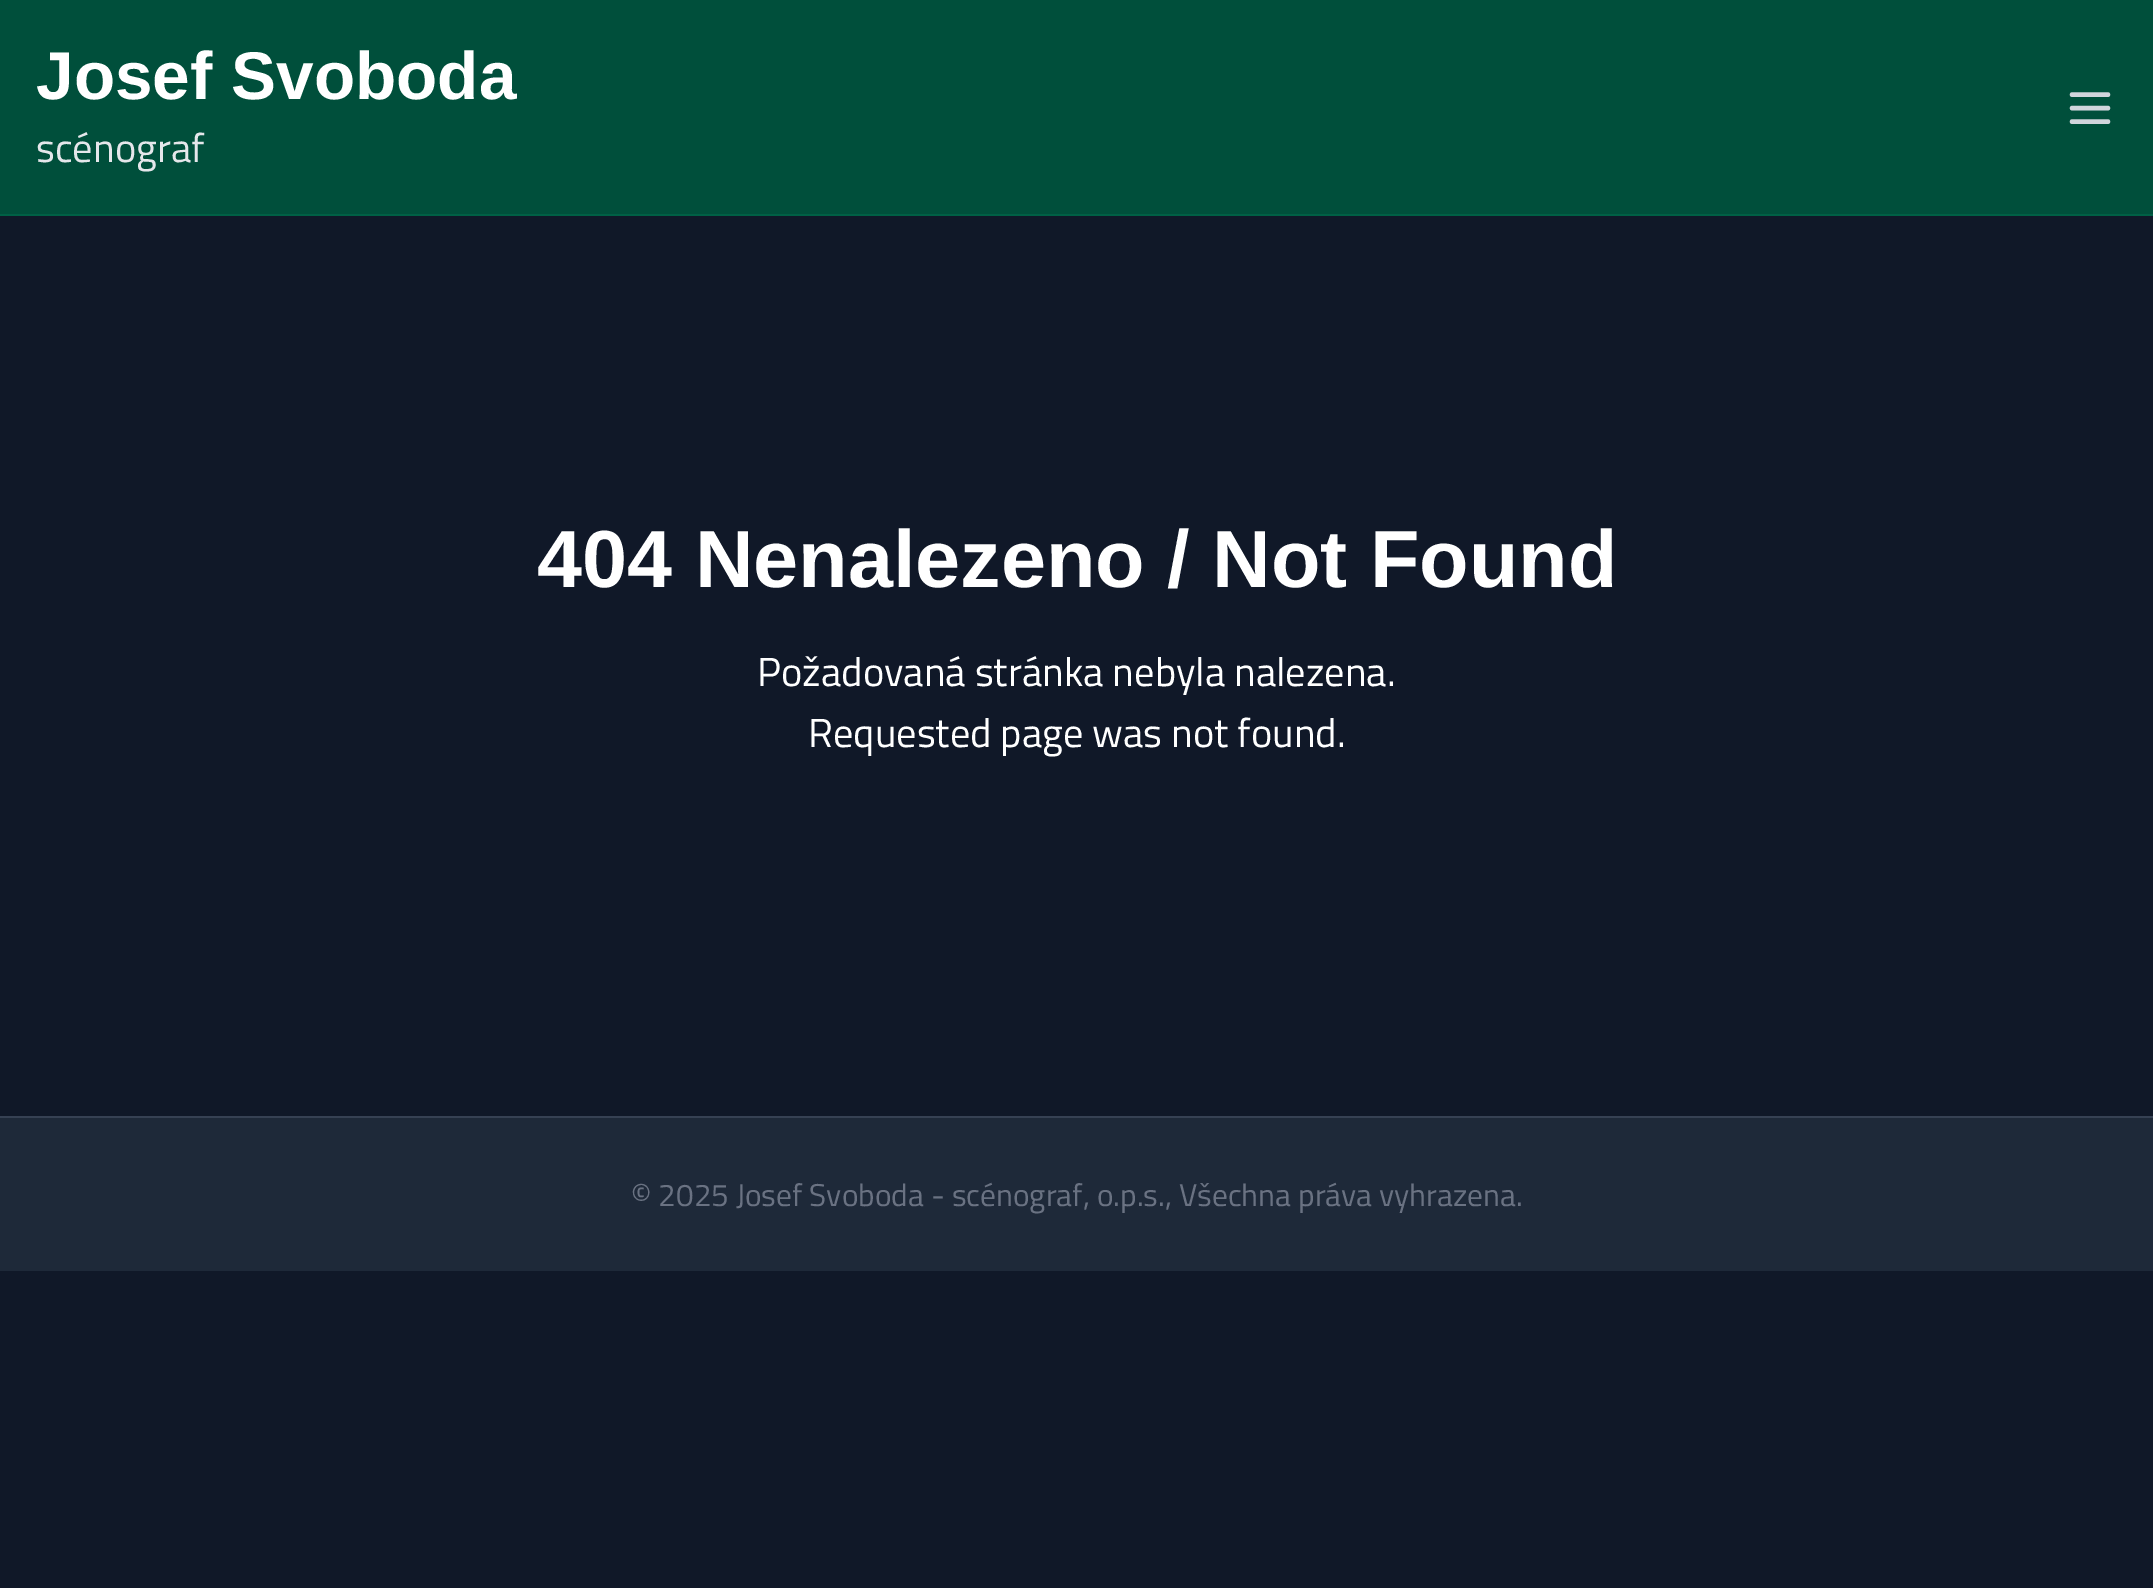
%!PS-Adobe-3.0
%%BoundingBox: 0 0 2153 1588
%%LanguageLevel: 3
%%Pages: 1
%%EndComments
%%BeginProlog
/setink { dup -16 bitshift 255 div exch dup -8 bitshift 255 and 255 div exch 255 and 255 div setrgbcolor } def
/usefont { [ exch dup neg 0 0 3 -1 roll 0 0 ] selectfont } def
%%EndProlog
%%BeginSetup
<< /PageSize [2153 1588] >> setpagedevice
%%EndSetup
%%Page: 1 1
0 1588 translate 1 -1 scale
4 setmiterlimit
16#101828 setink
0 0 2153 1588 rectfill
16#004F3B setink
0 0 2153 214 rectfill
16#006045 setink
0 214 2153 2 rectfill
/LiberationSans-Bold 67.5 usefont
16#FFFFFF setink
36 99 moveto (Josef Svoboda) show
/TitilliumWeb-Regular 40.5 usefont
16#E5E7EB setink
36 162 moveto (scénograf) show
16#D1D5DC setink
4.5 setlinewidth
1 setlinecap
1 setlinejoin
2072 94.5 moveto 2108 94.5 lineto 2072 108 moveto 2108 108 lineto 2072 121.5 moveto 2108 121.5 lineto stroke
/LiberationSans-Bold 81 usefont
16#FFFFFF setink
537 587 moveto (404 Nenalezeno / Not Found) show
/TitilliumWeb-Regular 40.5 usefont
757 686 moveto (Požadovaná stránka nebyla nalezena.) show
808 747 moveto (Requested page was not found.) show
16#1E2939 setink
0 1118 2153 153 rectfill
16#364153 setink
0 1116 2153 2 rectfill
/TitilliumWeb-Regular 31.5 usefont
16#6A7282 setink
631 1206 moveto (© 2025 Josef Svoboda - scénograf, o.p.s., Všechna práva vyhrazena.) show
showpage
%%EOF
